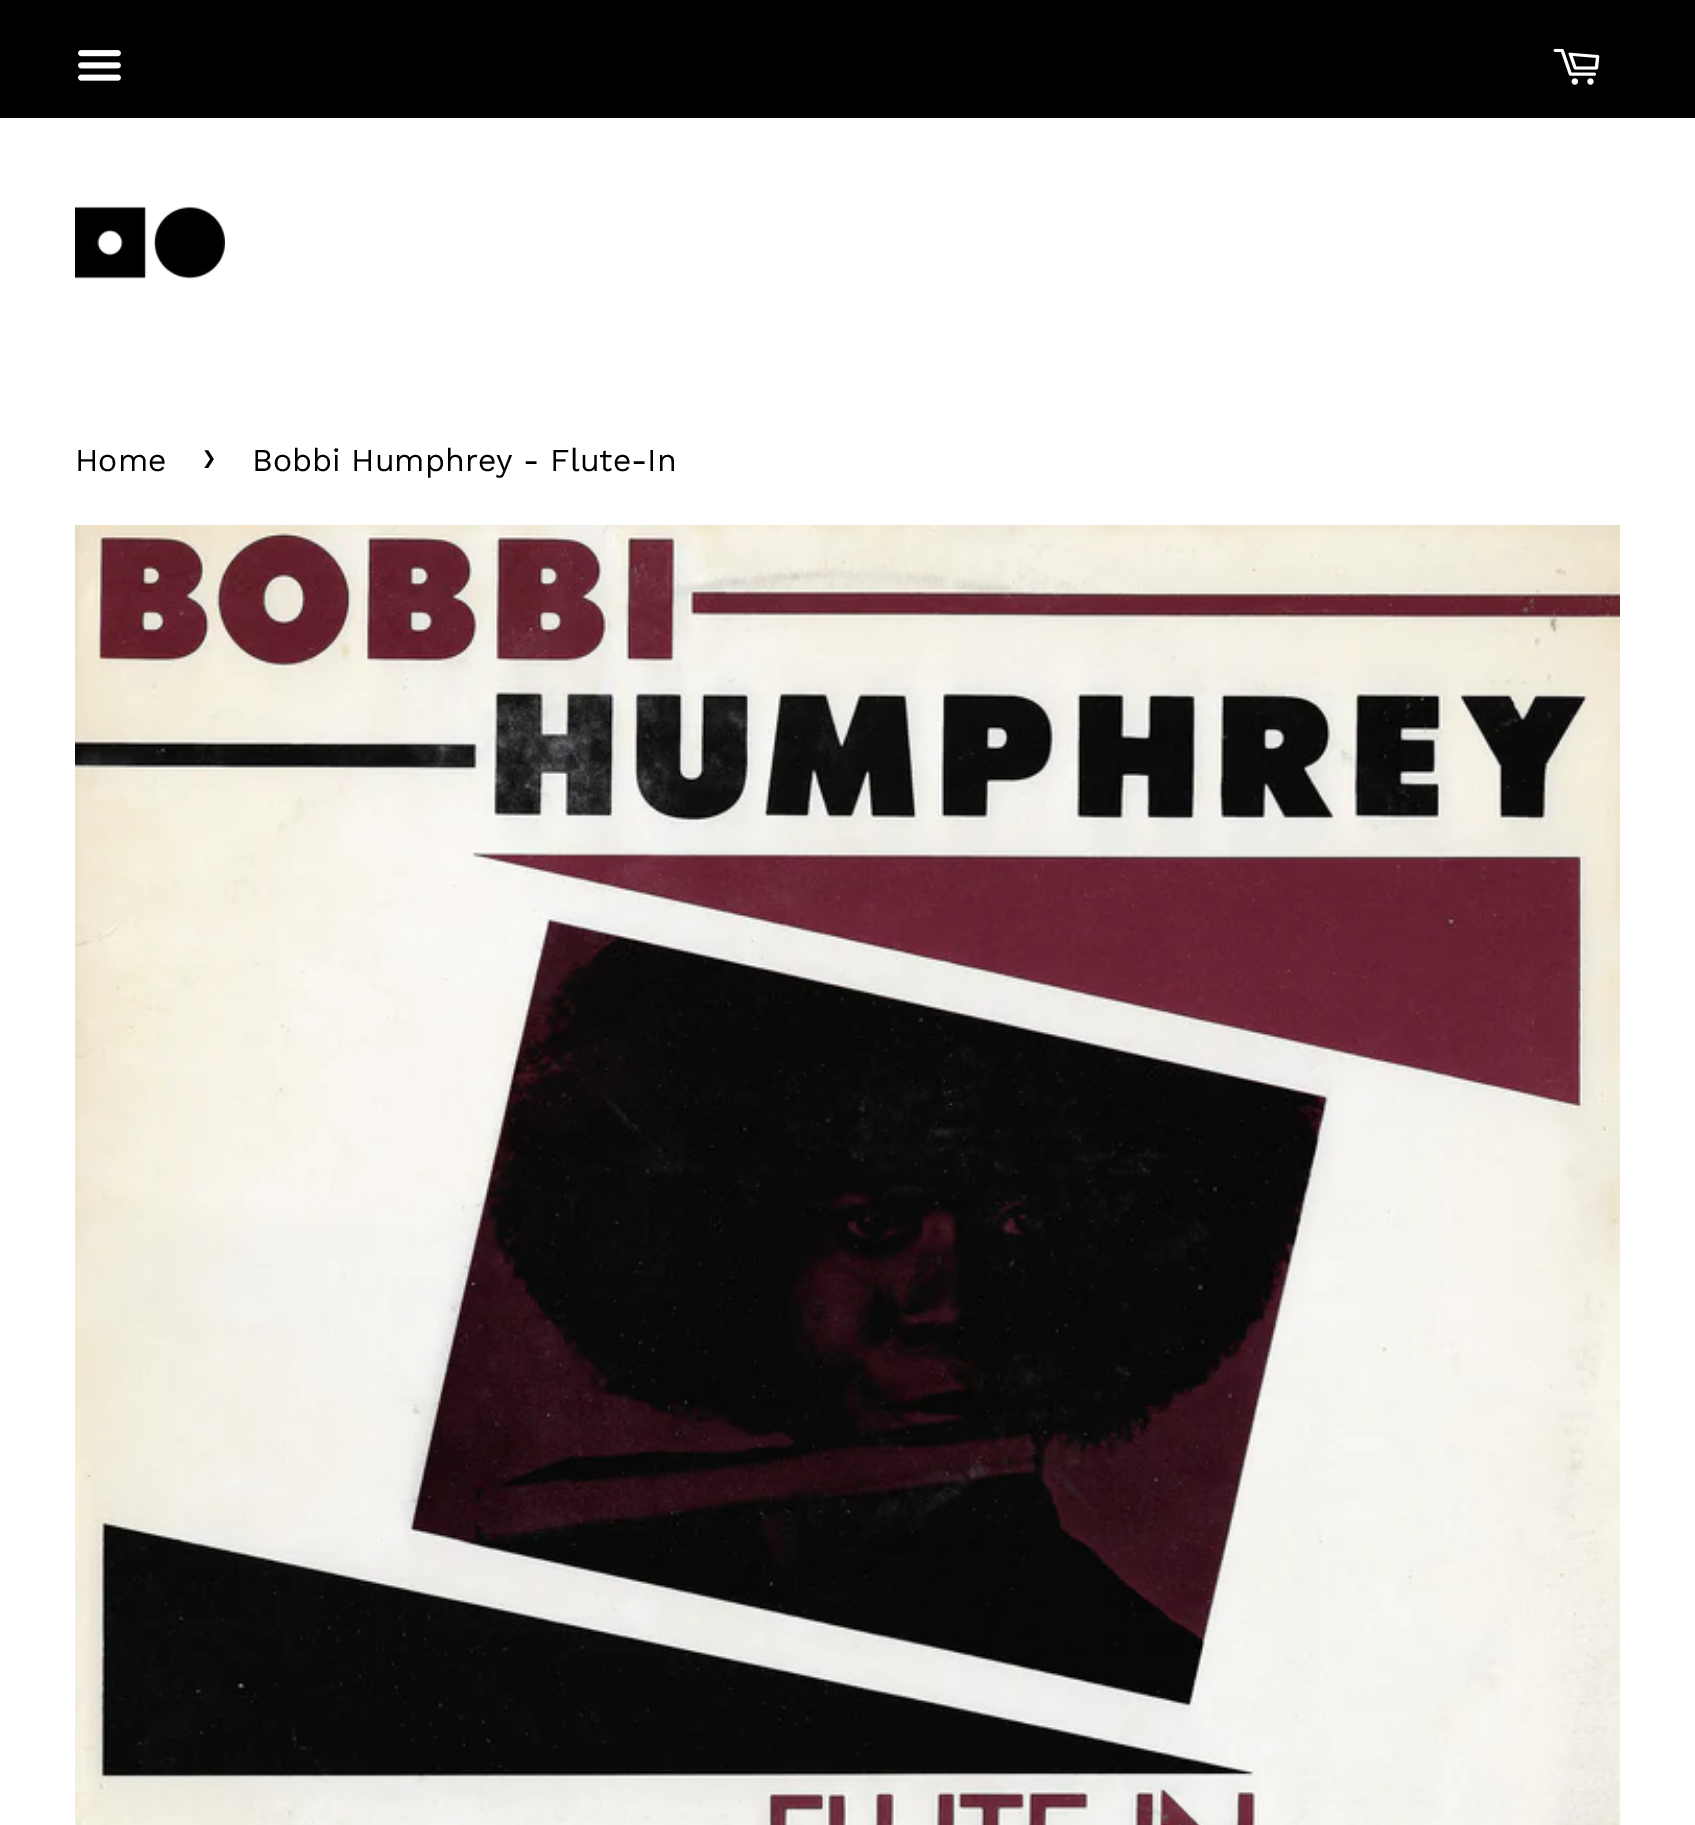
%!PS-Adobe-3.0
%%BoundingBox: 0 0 1695 1825
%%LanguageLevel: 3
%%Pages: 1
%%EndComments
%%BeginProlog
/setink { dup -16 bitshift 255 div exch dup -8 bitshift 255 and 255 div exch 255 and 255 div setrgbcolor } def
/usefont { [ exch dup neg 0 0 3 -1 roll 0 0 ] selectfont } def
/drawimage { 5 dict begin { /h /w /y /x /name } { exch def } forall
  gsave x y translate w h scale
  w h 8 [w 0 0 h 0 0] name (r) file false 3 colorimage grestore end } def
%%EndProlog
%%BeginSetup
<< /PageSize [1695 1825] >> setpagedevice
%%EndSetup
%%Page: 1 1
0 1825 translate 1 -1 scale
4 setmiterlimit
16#FFFFFF setink
0 0 1695 1825 rectfill
16#000000 setink
0 0 1695 118 rectfill
(img1.raw) 78 50 43 31 drawimage
(img2.raw) 1553 48 47 37 drawimage
(img3.raw) 75 206 150 73 drawimage
/WorkSans-Regular 31.9 usefont
75 471 moveto (Home) show
/WorkSans-Regular 45 usefont
202 471 moveto (›) show
/WorkSans-Regular 31.9 usefont
252 471 moveto (Bobbi Humphrey - Flute-In) show
(img4.raw) 75 525 1545 1300 drawimage
showpage
%%EOF
